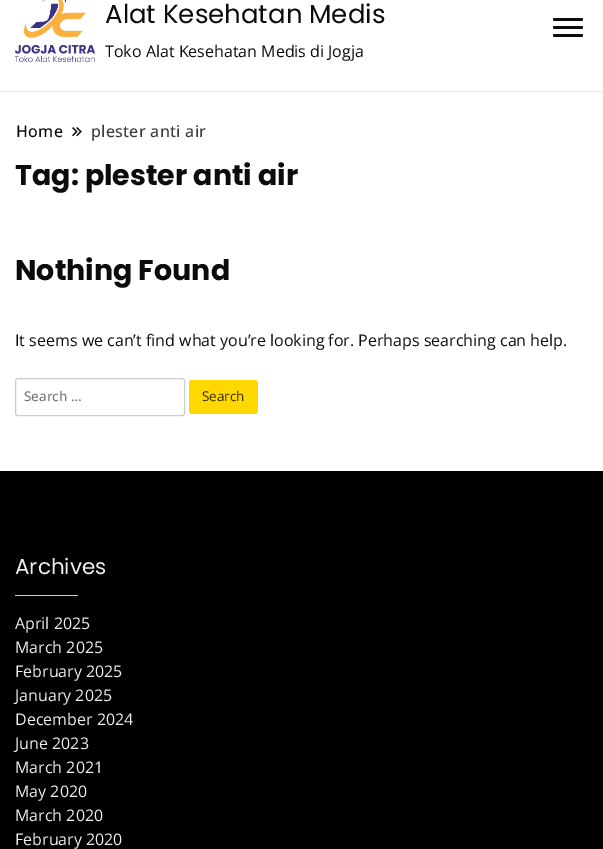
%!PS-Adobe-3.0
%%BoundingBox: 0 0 603 849
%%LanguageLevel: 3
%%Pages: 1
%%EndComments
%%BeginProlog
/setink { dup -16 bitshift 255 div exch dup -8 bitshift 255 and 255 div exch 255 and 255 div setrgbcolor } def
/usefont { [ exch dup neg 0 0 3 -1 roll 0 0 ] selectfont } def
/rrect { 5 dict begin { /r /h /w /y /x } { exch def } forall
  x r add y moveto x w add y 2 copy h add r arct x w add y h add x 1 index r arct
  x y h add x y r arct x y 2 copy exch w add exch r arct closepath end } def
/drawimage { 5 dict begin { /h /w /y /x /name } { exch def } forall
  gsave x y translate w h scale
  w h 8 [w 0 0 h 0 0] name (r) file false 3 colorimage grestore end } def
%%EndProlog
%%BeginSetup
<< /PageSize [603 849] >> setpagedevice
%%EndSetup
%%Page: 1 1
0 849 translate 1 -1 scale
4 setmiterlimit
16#FFFFFF setink
0 0 603 849 rectfill
16#E8E9E9 setink
0 91 603 1 rectfill
(img1.raw) 15 0 80 62 drawimage
/Poppins-Regular 26 usefont
16#0C0C0C setink
105 23 moveto (Alat Kesehatan Medis) show
/OpenSans-Regular 16 usefont
105 57 moveto (Toko Alat Kesehatan Medis di Jogja) show
553 18 30 3 1.5 rrect fill
553 26 30 3 1.5 rrect fill
553 34 30 3 1.5 rrect fill
/OpenSans-Medium 16 usefont
16 137 moveto 0.3 0 (Home) ashow
(img2.raw) 72 127 10 10 drawimage
16#3D3D3D setink
91 137 moveto 0.3 0 (plester anti air) ashow
/Poppins-Bold 28.5 usefont
16#0C0C0C setink
15 185 moveto (Tag: plester anti air) show
15 280 moveto (Nothing Found) show
/OpenSans-Regular 16 usefont
15 346 moveto (It seems we can’t find what you’re looking for. Perhaps searching can help.) show
16#CCCCCC setink
15.5 378.5 169 37 2.5 rrect stroke
/OpenSans-Medium 13.5 usefont
16#757575 setink
24 401 moveto (Search …) show
16#FFD800 setink
189 380 69 34 3 rrect fill
/OpenSans-Regular 13.5 usefont
16#332B00 setink
202 401 moveto (Search) show
16#000000 setink
0 471 603 378 rectfill
/Poppins-Regular 21.5 usefont
16#EEEEEE setink
15 574 moveto (Archives) show
16#FFD800 setink
15 595 63 1 rectfill
/OpenSans-Regular 16 usefont
16#EEEEEE setink
[
    [(April 2025) 15 629]
    [(March 2025) 15 653]
    [(February 2025) 15 677]
    [(January 2025) 15 701]
    [(December 2024) 15 725]
    [(June 2023) 15 749]
    [(March 2021) 15 773]
    [(May 2020) 15 797]
    [(March 2020) 15 821]
    [(February 2020) 15 845]
] { aload pop moveto show } forall
showpage
%%EOF
